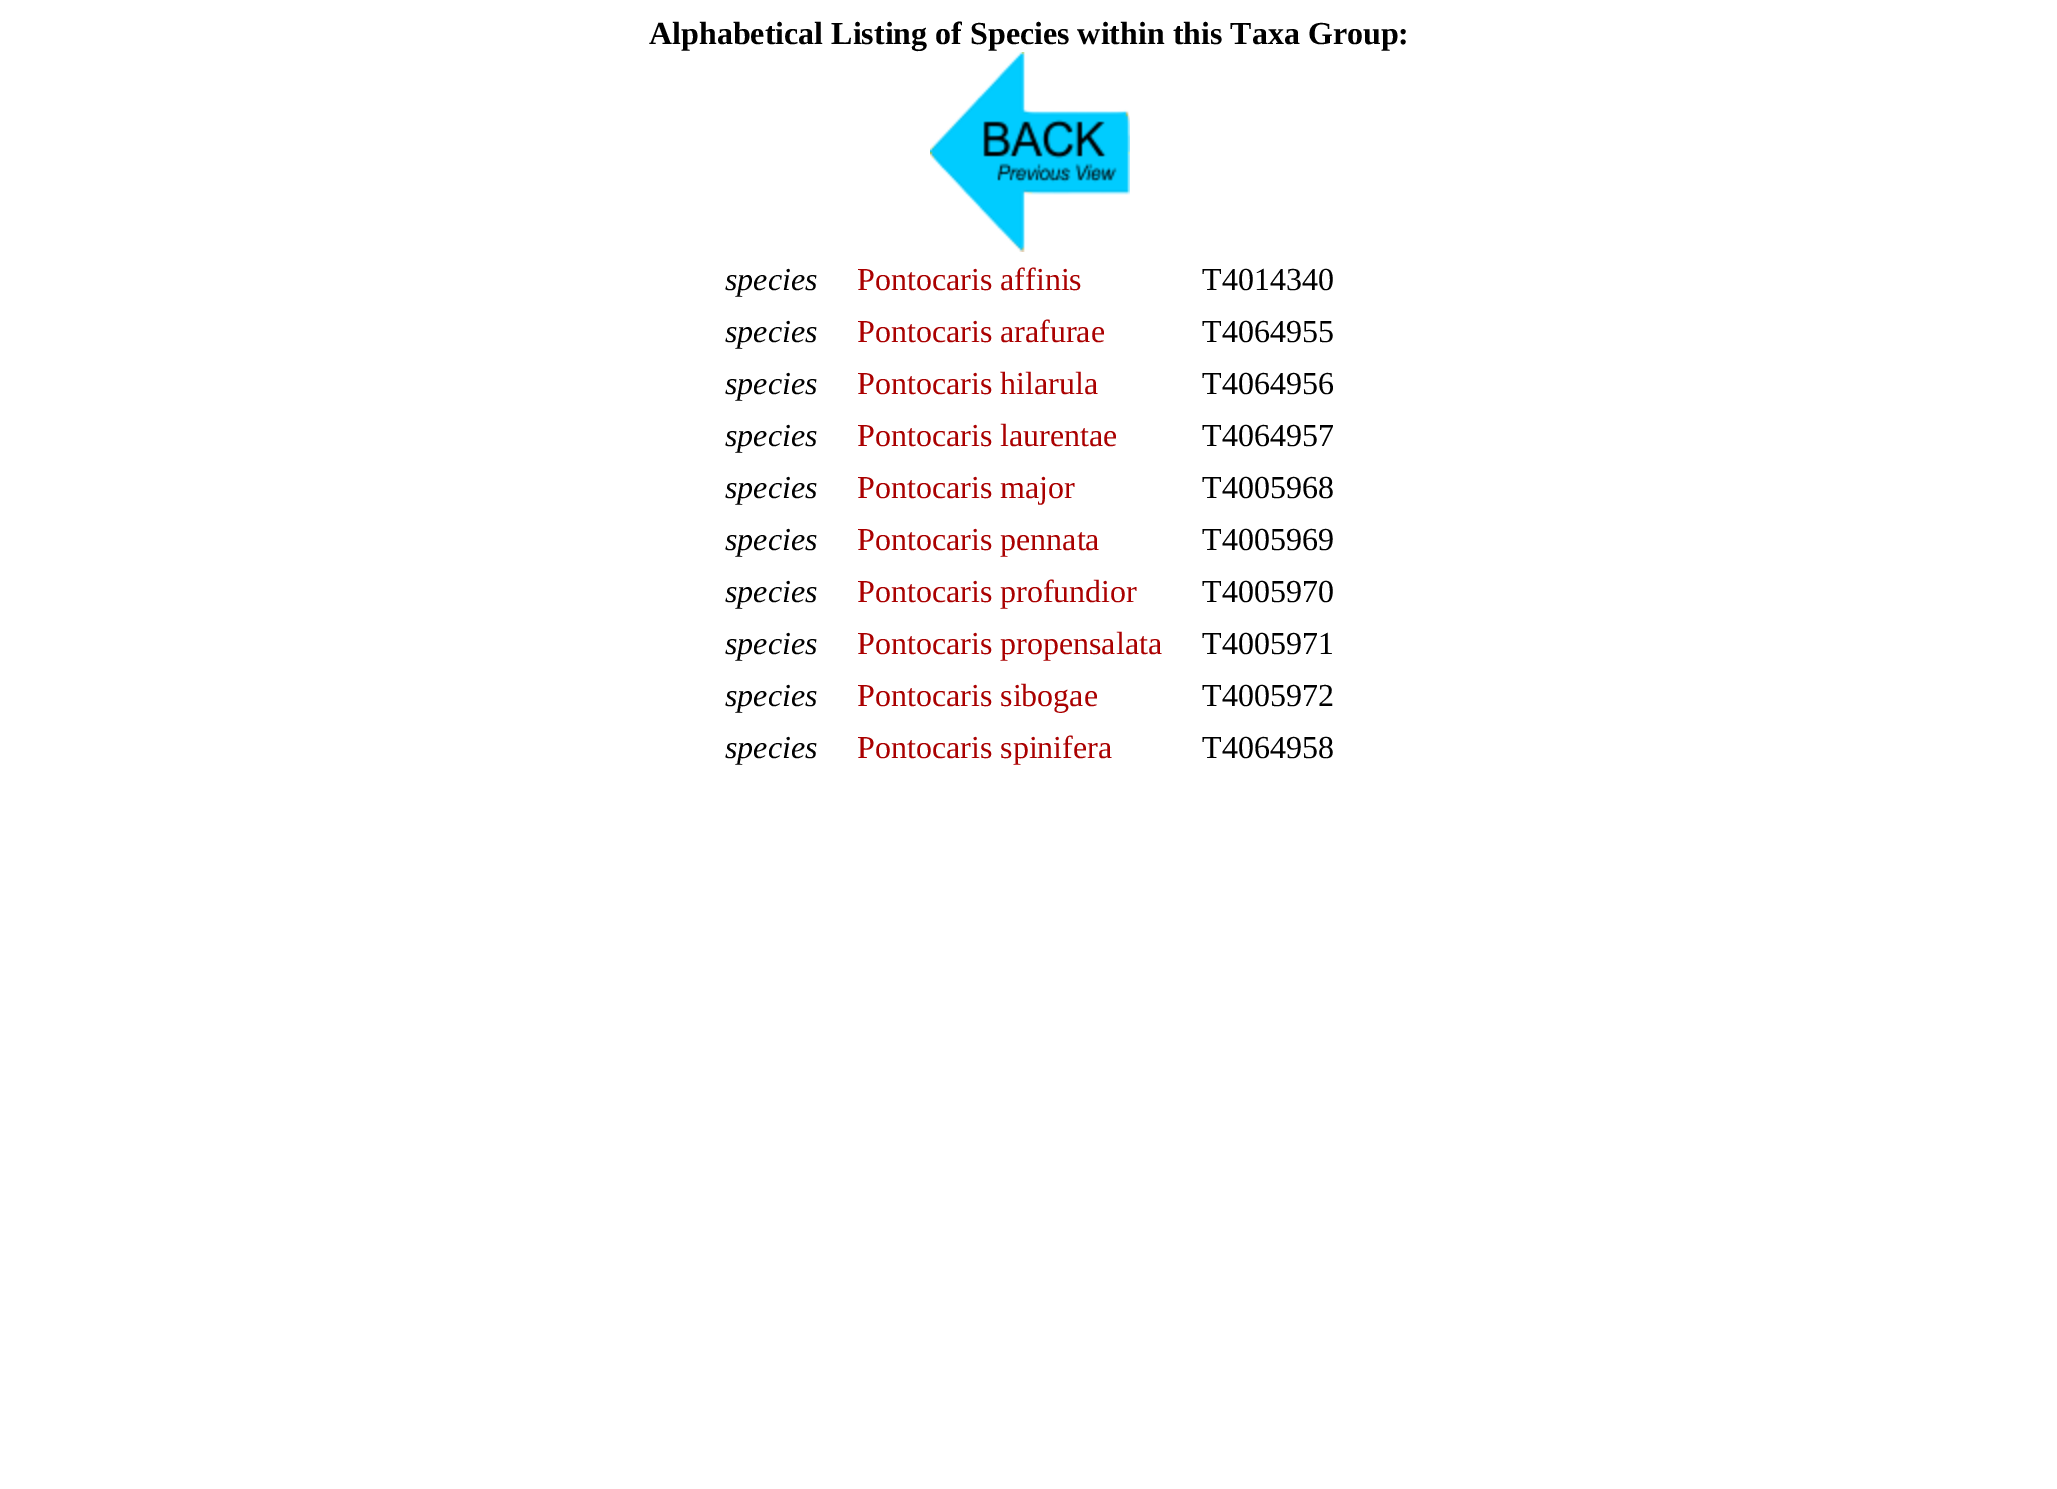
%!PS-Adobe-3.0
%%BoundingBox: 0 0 2057 1489
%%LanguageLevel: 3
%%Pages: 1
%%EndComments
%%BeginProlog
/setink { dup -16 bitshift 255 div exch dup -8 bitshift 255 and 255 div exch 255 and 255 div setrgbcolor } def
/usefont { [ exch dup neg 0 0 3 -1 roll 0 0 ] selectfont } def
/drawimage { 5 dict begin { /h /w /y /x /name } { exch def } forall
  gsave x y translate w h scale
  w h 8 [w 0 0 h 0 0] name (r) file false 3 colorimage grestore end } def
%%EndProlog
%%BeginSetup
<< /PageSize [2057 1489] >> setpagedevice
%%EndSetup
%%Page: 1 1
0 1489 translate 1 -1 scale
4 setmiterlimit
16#FFFFFF setink
0 0 2057 1489 rectfill
/LiberationSerif-Bold 32 usefont
16#000000 setink
649 44 moveto (Alphabetical Listing of Species within this Taxa Group:) show
(img1.raw) 930 52 200 200 drawimage
/LiberationSerif-Italic 32 usefont
725 290 moveto (species) show
/LiberationSerif-Regular 32 usefont
16#AA0000 setink
857 290 moveto (Pontocaris affinis) show
16#000000 setink
1202 290 moveto (T4014340) show
/LiberationSerif-Italic 32 usefont
725 342 moveto (species) show
/LiberationSerif-Regular 32 usefont
16#AA0000 setink
857 342 moveto (Pontocaris arafurae) show
16#000000 setink
1202 342 moveto (T4064955) show
/LiberationSerif-Italic 32 usefont
725 394 moveto (species) show
/LiberationSerif-Regular 32 usefont
16#AA0000 setink
857 394 moveto (Pontocaris hilarula) show
16#000000 setink
1202 394 moveto (T4064956) show
/LiberationSerif-Italic 32 usefont
725 446 moveto (species) show
/LiberationSerif-Regular 32 usefont
16#AA0000 setink
857 446 moveto (Pontocaris laurentae) show
16#000000 setink
1202 446 moveto (T4064957) show
/LiberationSerif-Italic 32 usefont
725 498 moveto (species) show
/LiberationSerif-Regular 32 usefont
16#AA0000 setink
857 498 moveto (Pontocaris major) show
16#000000 setink
1202 498 moveto (T4005968) show
/LiberationSerif-Italic 32 usefont
725 550 moveto (species) show
/LiberationSerif-Regular 32 usefont
16#AA0000 setink
857 550 moveto (Pontocaris pennata) show
16#000000 setink
1202 550 moveto (T4005969) show
/LiberationSerif-Italic 32 usefont
725 602 moveto (species) show
/LiberationSerif-Regular 32 usefont
16#AA0000 setink
857 602 moveto (Pontocaris profundior) show
16#000000 setink
1202 602 moveto (T4005970) show
/LiberationSerif-Italic 32 usefont
725 654 moveto (species) show
/LiberationSerif-Regular 32 usefont
16#AA0000 setink
857 654 moveto (Pontocaris propensalata) show
16#000000 setink
1202 654 moveto (T4005971) show
/LiberationSerif-Italic 32 usefont
725 706 moveto (species) show
/LiberationSerif-Regular 32 usefont
16#AA0000 setink
857 706 moveto (Pontocaris sibogae) show
16#000000 setink
1202 706 moveto (T4005972) show
/LiberationSerif-Italic 32 usefont
725 758 moveto (species) show
/LiberationSerif-Regular 32 usefont
16#AA0000 setink
857 758 moveto (Pontocaris spinifera) show
16#000000 setink
1202 758 moveto (T4064958) show
showpage
%%EOF
